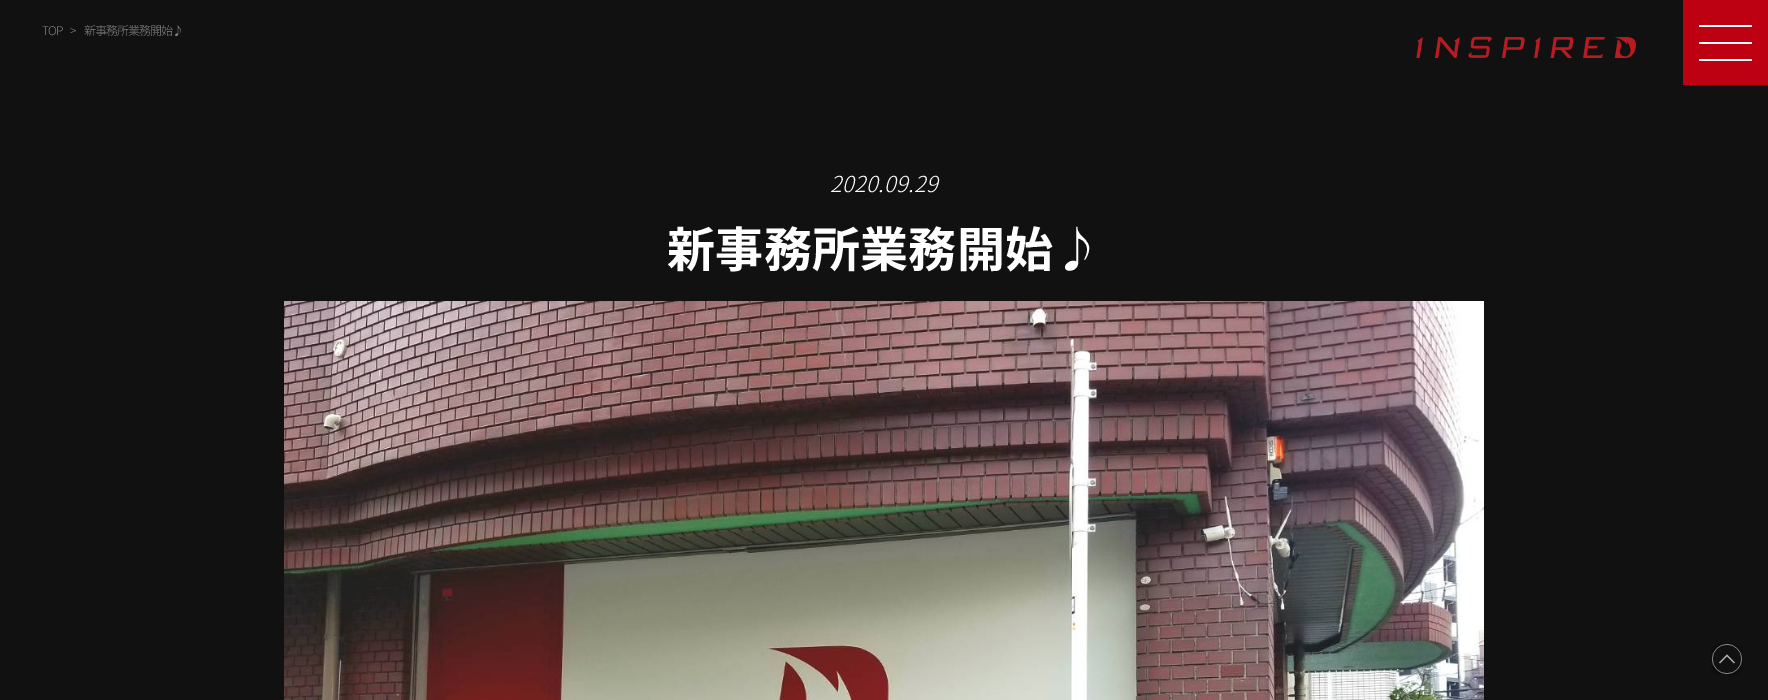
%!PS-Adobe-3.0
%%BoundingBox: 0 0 1768 700
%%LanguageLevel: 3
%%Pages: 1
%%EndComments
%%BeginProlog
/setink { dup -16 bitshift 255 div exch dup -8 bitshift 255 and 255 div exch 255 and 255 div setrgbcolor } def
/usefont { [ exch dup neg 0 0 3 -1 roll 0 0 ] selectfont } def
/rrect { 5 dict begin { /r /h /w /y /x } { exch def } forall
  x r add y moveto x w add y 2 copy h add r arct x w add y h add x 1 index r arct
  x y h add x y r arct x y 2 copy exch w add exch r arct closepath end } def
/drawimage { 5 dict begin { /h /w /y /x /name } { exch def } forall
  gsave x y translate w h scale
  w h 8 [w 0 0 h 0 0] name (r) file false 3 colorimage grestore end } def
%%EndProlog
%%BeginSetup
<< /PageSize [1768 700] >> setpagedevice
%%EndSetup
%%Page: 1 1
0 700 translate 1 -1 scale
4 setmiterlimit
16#111111 setink
0 0 1768 700 rectfill
/NotoSansJP-Light 12 usefont
16#888888 setink
42 35 moveto -1 0 (TOP) ashow
70 35 moveto -1 0 (>) ashow
84 35 moveto -1 0 (新事務所業務開始♪) ashow
16#BD0012 setink
1683 0 85 85 rectfill
16#FFFFFF setink
1699 25 53 2 1 rrect fill
1699 42 53 2 1 rrect fill
1699 59 53 2 1 rrect fill
(img1.raw) 1416 36 220 22 drawimage
/NotoSansJP-LightItalic 22 usefont
830 192 moveto 0.25 0 (2020.09.29) ashow
/NotoSansJP-Bold 48 usefont
667 267 moveto 0.25 0 (新事務所業務開始♪) ashow
(img2.raw) 284 301 1200 399 drawimage
(img3.raw) 1711 643 32 32 drawimage
showpage
%%EOF
